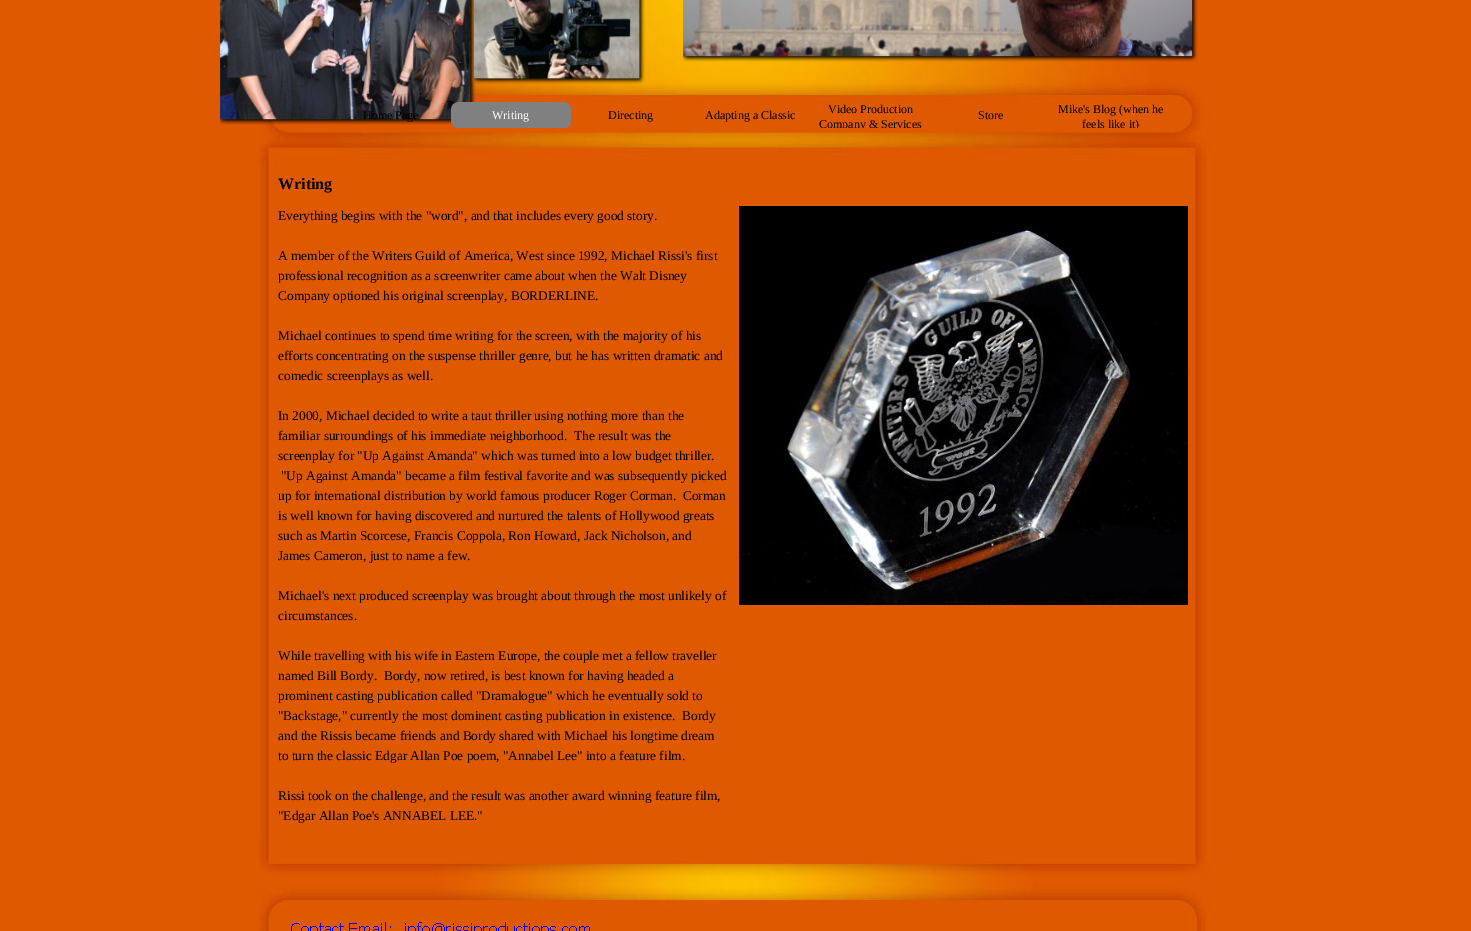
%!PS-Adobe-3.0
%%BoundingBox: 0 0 1471 931
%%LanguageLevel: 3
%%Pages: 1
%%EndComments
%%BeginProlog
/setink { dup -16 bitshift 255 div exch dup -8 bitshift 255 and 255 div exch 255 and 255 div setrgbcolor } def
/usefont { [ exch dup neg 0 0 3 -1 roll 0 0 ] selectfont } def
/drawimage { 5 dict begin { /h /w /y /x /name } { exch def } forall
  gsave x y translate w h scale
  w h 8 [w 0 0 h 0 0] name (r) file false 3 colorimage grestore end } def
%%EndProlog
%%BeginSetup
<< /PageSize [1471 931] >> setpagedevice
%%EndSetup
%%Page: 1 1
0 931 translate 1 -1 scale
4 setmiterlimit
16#DF5900 setink
0 0 1471 931 rectfill
(img1.raw) 259 0 947 163 drawimage
(img2.raw) 220 0 256 125 drawimage
(img3.raw) 474 0 171 84 drawimage
(img4.raw) 683 0 515 62 drawimage
/LiberationSerif-Regular 12 usefont
16#000000 setink
363 119 moveto (Home Page) show
(img5.raw) 451 102 120 26 drawimage
16#FFFFFF setink
492 119 moveto (Writing) show
16#000000 setink
[
    [(Directing) 608 119]
    [(Adapting a Classic) 705 119]
    [(Video Production) 828 113]
] { aload pop moveto show } forall
gsave
811 102 120 26 rectclip
819 128 moveto (Company & Services) show
grestore
978 119 moveto (Store) show
1058 113 moveto (Mike's Blog \(when he) show
gsave
1051 102 120 26 rectclip
1082 128 moveto (feels like it\)) show
grestore
(img6.raw) 260 163 946 674 drawimage
/LiberationSerif-Bold 16 usefont
278 189 moveto (Writing) show
/LiberationSerif-Regular 13.35 usefont
[
    [(Everything begins with the "word", and that includes every good story.) 278 220]
    [(A member of the Writers Guild of America, West since 1992, Michael Rissi's first) 278 260]
    [(professional recognition as a screenwriter came about when the Walt Disney) 278 280]
    [(Company optioned his original screenplay, BORDERLINE.) 278 300]
    [(Michael continues to spend time writing for the screen, with the majority of his) 278 340]
    [(efforts concentrating on the suspense thriller genre, but he has written dramatic and) 278 360]
    [(comedic screenplays as well.) 278 380]
    [(In 2000, Michael decided to write a taut thriller using nothing more than the) 278 420]
    [(familiar surroundings of his immediate neighborhood.  The result was the) 278 440]
    [(screenplay for "Up Against Amanda" which was turned into a low budget thriller.) 278 460]
    [("Up Against Amanda" became a film festival favorite and was subsequently picked) 281 480]
    [(up for international distribution by world famous producer Roger Corman.  Corman) 278 500]
    [(is well known for having discovered and nurtured the talents of Hollywood greats) 278 520]
    [(such as Martin Scorcese, Francis Coppola, Ron Howard, Jack Nicholson, and) 278 540]
    [(James Cameron, just to name a few.) 278 560]
    [(Michael's next produced screenplay was brought about through the most unlikely of) 278 600]
    [(circumstances.) 278 620]
    [(While travelling with his wife in Eastern Europe, the couple met a fellow traveller) 278 660]
    [(named Bill Bordy.  Bordy, now retired, is best known for having headed a) 278 680]
    [(prominent casting publication called "Dramalogue" which he eventually sold to) 278 700]
    [("Backstage," currently the most dominent casting publication in existence.  Bordy) 278 720]
    [(and the Rissis became friends and Bordy shared with Michael his longtime dream) 278 740]
    [(to turn the classic Edgar Allan Poe poem, "Annabel Lee" into a feature film.) 278 760]
    [(Rissi took on the challenge, and the result was another award winning feature film,) 278 800]
    [("Edgar Allan Poe's ANNABEL LEE.") 278 820]
] { aload pop moveto show } forall
(img7.raw) 739 206 449 399 drawimage
(img8.raw) 259 837 947 94 drawimage
(img9.raw) 291 922 299 9 drawimage
showpage
%%EOF
